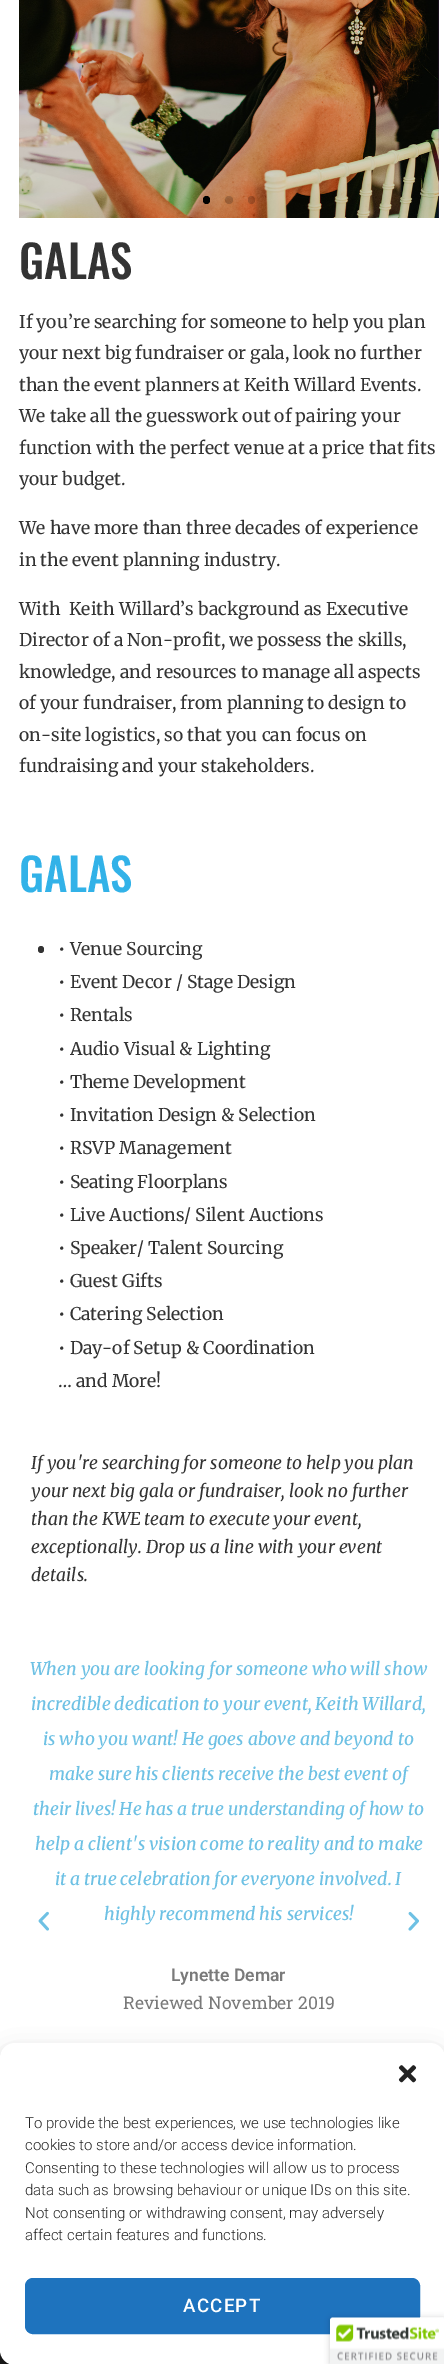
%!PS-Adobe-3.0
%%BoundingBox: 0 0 444 2364
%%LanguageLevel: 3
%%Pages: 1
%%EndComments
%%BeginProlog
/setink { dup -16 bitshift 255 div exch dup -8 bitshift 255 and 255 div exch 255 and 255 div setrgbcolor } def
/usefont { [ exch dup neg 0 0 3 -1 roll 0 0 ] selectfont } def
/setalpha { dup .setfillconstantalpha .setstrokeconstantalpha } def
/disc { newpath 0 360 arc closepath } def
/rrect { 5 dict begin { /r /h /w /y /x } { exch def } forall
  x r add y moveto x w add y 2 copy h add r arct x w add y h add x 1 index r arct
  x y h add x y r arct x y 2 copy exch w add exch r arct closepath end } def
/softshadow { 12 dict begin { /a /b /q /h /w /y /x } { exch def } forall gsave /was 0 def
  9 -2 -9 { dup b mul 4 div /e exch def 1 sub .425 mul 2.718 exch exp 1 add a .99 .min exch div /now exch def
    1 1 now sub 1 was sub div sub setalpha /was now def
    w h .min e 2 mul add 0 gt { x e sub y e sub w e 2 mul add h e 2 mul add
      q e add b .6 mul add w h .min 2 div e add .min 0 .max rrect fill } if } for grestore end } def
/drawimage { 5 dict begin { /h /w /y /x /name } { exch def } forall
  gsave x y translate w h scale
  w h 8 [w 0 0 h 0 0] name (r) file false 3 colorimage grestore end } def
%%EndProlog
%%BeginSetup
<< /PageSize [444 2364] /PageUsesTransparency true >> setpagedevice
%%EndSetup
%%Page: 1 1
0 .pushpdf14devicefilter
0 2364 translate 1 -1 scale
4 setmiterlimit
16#FFFFFF setink
0 0 444 2364 rectfill
(img1.raw) 19 0 420 218 drawimage
16#000000 setink
203 196 7 8 3.5 rrect fill
0.2 setalpha
229 200 4 disc fill
248 196 7 8 3.5 rrect fill
/Oswald-Medium 45 usefont
1 setalpha
16#333333 setink
19 279 moveto (GALAS) show
/Merriweather-Regular 17.5 usefont
[
    [(If you’re searching for someone to help you plan) 19 328]
    [(your next big fundraiser or gala, look no further) 19 359]
    [(than the event planners at Keith Willard Events.) 19 391]
    [(We take all the guesswork out of pairing your) 19 422]
    [(function with the perfect venue at a price that fits) 19 454]
    [(your budget.) 19 485]
    [(We have more than three decades of experience) 19 534]
    [(in the event planning industry.) 19 566]
    [(With  Keith Willard’s background as Executive) 19 615]
    [(Director of a Non-profit, we possess the skills,) 19 646]
    [(knowledge, and resources to manage all aspects) 19 678]
    [(of your fundraiser, from planning to design to) 19 709]
    [(on-site logistics, so that you can focus on) 19 741]
    [(fundraising and your stakeholders.) 19 772]
] { aload pop moveto show } forall
/Oswald-Medium 45 usefont
16#32B2E8 setink
19 892 moveto (GALAS) show
16#333333 setink
38 946 6 7 3 rrect fill
/Merriweather-Regular 17.5 usefont
[
    [(• Venue Sourcing) 58 955]
    [(• Event Decor / Stage Design) 58 988]
    [(• Rentals) 58 1021]
    [(• Audio Visual & Lighting) 58 1055]
    [(• Theme Development) 58 1088]
    [(• Invitation Design & Selection) 58 1121]
    [(• RSVP Management) 58 1154]
    [(• Seating Floorplans) 58 1188]
    [(• Live Auctions/ Silent Auctions) 58 1221]
    [(• Speaker/ Talent Sourcing) 58 1254]
    [(• Guest Gifts) 58 1287]
    [(• Catering Selection) 58 1320]
    [(• Day-of Setup & Coordination) 58 1354]
    [(… and More!) 58 1387]
] { aload pop moveto show } forall
/Merriweather-Italic 17.5 usefont
[
    [(If you're searching for someone to help you plan) 31 1469]
    [(your next big gala or fundraiser, look no further) 31 1497]
    [(than the KWE team to execute your event,) 31 1525]
    [(exceptionally. Drop us a line with your event) 31 1553]
    [(details.) 31 1581]
] { aload pop moveto show } forall
/Merriweather-MediumItalic 17.5 usefont
16#6EC1E4 setink
[
    [(When you are looking for someone who will show) 30 1675]
    [(incredible dedication to your event, Keith Willard,) 31 1710]
    [(is who you want! He goes above and beyond to) 43 1745]
    [(make sure his clients receive the best event of) 49 1780]
    [(their lives! He has a true understanding of how to) 33 1815]
    [(help a client's vision come to reality and to make) 35 1850]
    [(it a true celebration for everyone involved. I) 55 1885]
    [(highly recommend his services!) 104 1920]
] { aload pop moveto show } forall
/Roboto-SemiBold 17.5 usefont
16#7A7A7A setink
171 1981 moveto (Lynette Demar) show
/RobotoSlab-Regular 17.5 usefont
123 2009 moveto (Reviewed November 2019) show
(img2.raw) 38 1911 11 20 drawimage
(img3.raw) 408 1911 11 20 drawimage
16#1C1C1C setink
0 2350 10 14 rectfill
16#000000 setink
0 2050 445 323 15 4 0.23 softshadow
0 2055 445 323 15 12.5 0.19 softshadow
16#FFFFFF setink
0 2043 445 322 15 rrect fill
(img4.raw) 398 2065 19 18 drawimage
/Roboto-Light 15 usefont
16#222222 setink
[
    [(To provide the best experiences, we use technologies like) 25 2128]
    [(cookies to store and/or access device information.) 25 2150]
    [(Consenting to these technologies will allow us to process) 25 2173]
    [(data such as browsing behaviour or unique IDs on this site.) 25 2195]
    [(Not consenting or withdrawing consent, may adversely) 25 2218]
    [(affect certain features and functions.) 25 2240]
] { aload pop moveto show } forall
16#1E73BE setink
25.5 2278.5 394 55 7.5 rrect gsave fill grestore
stroke
/Roboto-Medium 18.75 usefont
16#FFFFFF setink
183 2312 moveto 1.25 0 (ACCEPT) ashow
16#000000 setink
330 2318 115 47 2.5 3 0.2 softshadow
(img5.raw) 330 2317 114 47 drawimage
.poppdf14devicefilter showpage
%%EOF
